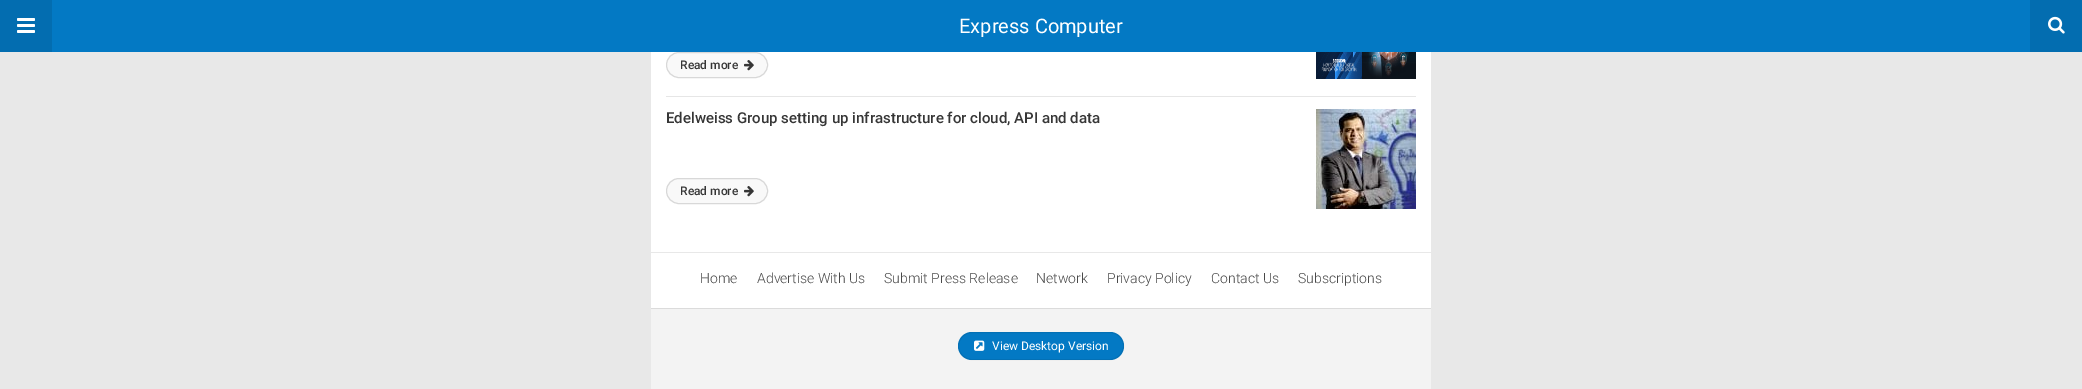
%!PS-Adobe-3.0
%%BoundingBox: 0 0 2082 389
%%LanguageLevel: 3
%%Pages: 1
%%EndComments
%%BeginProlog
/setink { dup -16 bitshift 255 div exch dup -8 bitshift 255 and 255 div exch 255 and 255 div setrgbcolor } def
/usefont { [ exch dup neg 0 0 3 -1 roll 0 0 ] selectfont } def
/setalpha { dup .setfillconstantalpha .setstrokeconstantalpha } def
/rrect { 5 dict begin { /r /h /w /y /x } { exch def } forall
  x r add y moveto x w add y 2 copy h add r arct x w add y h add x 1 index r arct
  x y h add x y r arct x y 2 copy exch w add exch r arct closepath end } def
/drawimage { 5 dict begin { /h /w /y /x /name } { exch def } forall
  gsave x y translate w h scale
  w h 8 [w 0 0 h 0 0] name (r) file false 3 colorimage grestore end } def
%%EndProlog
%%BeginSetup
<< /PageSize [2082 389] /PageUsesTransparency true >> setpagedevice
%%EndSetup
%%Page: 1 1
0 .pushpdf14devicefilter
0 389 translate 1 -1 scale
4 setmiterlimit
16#E8E8E8 setink
0 0 2082 389 rectfill
[
    [651 52 780 200 16#FFFFFF]
    [52 0 1978 52 16#0379C4]
    [0 0 52 52 16#036DB0]
] { aload pop setink rectfill } forall
(img1.raw) 17 18 18 15 drawimage
/Roboto-Regular 20 usefont
16#FFFFFF setink
959 33 moveto (Express Computer) show
16#036DB0 setink
2030 0 52 52 rectfill
(img2.raw) 2048 16 17 18 drawimage
16#E6E6E6 setink
666 96 750 1 rectfill
16#F9F9F9 setink
666.5 52.5 101 25 12.5 rrect gsave fill grestore
16#D8D8D8 setink
stroke
/Roboto-Medium 12 usefont
16#363636 setink
680 69 moveto (Read more) show
(img3.raw) 744 60 10 11 drawimage
(img4.raw) 1316 52 100 27 drawimage
/Roboto-Medium 15 usefont
666 123 moveto (Edelweiss Group setting up infrastructure for cloud, API and data) show
(img5.raw) 1316 109 100 100 drawimage
16#F9F9F9 setink
666.5 178.5 101 25 12.5 rrect gsave fill grestore
16#D8D8D8 setink
stroke
/Roboto-Medium 12 usefont
16#363636 setink
680 195 moveto (Read more) show
(img3.raw) 744 186 10 11 drawimage
16#F3F3F3 setink
651 309 780 80 rectfill
16#FFFFFF setink
651 253 780 55 rectfill
/Roboto-Light 14 usefont
16#494949 setink
[
    [(Home) 700 283]
    [(Advertise With Us) 757 283]
    [(Submit Press Release) 884 283]
    [(Network) 1036 283]
    [(Privacy Policy) 1107 283]
    [(Contact Us) 1211 283]
    [(Subscriptions) 1298 283]
] { aload pop moveto show } forall
16#DBDBDB setink
651 308 780 1 rectfill
16#0379C4 setink
958 332 166 28 14 rrect fill
0.08 setalpha
16#000000 setink
958.5 332.5 165 27 13.5 rrect stroke
1 setalpha
(img6.raw) 974 340 11 11 drawimage
/Roboto-Regular 12 usefont
16#FFFFFF setink
992 350 moveto (View Desktop Version) show
.poppdf14devicefilter showpage
%%EOF
